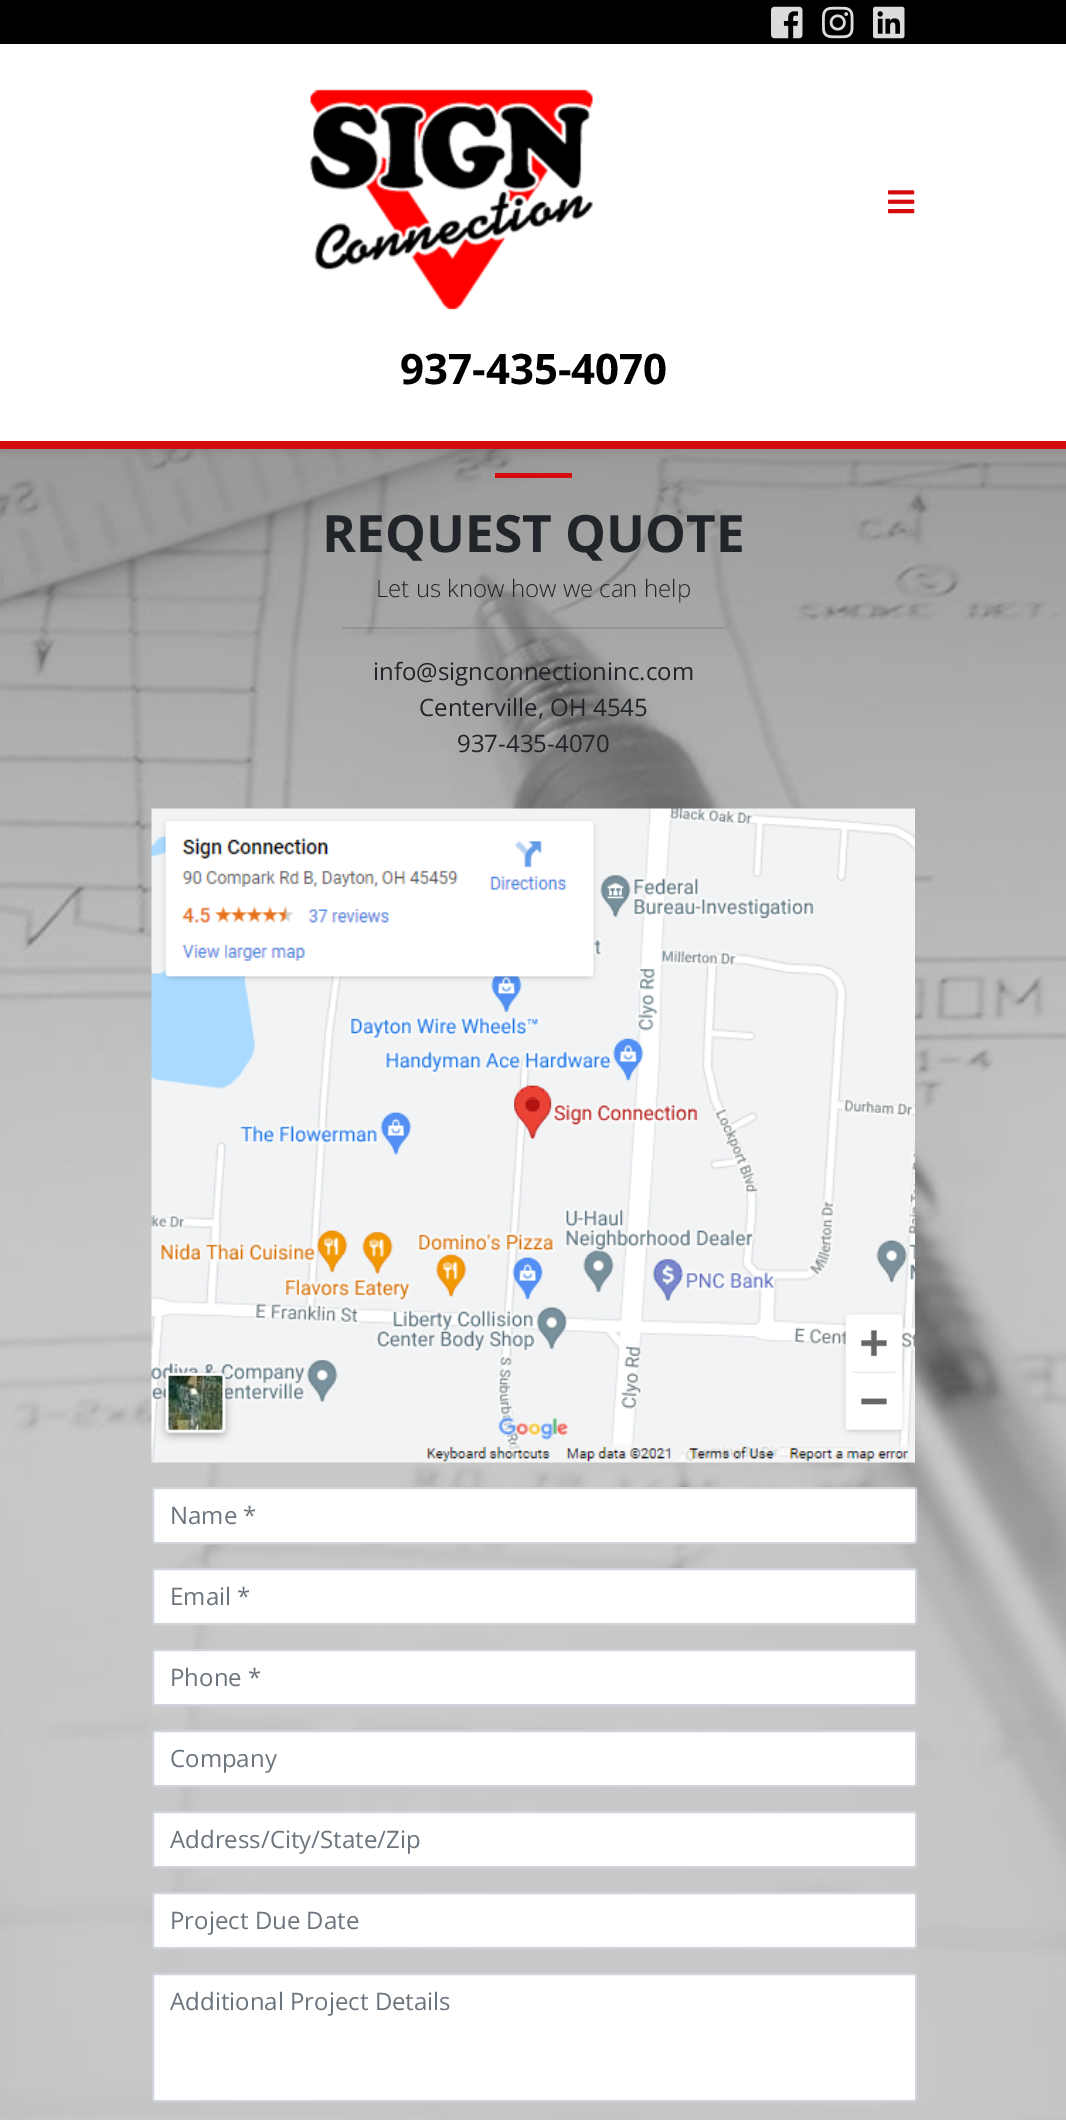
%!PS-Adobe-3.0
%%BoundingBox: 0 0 1066 2120
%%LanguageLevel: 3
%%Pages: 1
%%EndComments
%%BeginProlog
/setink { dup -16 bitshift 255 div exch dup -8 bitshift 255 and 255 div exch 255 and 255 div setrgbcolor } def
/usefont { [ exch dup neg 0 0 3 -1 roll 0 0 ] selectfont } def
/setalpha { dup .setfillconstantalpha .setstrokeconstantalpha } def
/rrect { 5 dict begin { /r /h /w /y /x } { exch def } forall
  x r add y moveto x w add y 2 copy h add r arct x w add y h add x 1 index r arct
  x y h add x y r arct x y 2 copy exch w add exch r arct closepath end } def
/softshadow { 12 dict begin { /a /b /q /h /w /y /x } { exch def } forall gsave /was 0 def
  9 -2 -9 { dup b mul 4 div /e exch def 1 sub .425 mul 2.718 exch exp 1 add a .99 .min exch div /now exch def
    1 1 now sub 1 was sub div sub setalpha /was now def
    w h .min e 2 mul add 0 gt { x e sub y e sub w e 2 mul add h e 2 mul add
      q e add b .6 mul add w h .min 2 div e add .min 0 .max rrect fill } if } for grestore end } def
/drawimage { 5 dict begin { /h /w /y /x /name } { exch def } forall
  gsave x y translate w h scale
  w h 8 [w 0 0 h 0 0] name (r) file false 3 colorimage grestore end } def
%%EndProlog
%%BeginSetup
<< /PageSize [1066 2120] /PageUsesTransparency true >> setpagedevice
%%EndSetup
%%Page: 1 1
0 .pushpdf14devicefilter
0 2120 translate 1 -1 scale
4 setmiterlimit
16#FFFFFF setink
0 0 1066 2120 rectfill
(img6.raw) 0 449 1066 1671 drawimage
16#000000 setink
0 47 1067 405 0 3 0.07 softshadow
0 0 1066 44 rectfill
(img1.raw) 771 6 32 33 drawimage
(img2.raw) 822 6 32 33 drawimage
(img3.raw) 873 6 32 33 drawimage
16#FFFFFF setink
0 44 1066 397 rectfill
16#D60B0B setink
0 441 1066 8 rectfill
(img4.raw) 310 89 283 221 drawimage
(img5.raw) 888 190 27 24 drawimage
/OpenSans-Bold 42 usefont
16#000000 setink
400 384 moveto (937-435-4070) show
16#D60B0B setink
495 473 77 5 rectfill
/OpenSans-Bold 51.5 usefont
16#212529 setink
322 552 moveto (REQUEST QUOTE) show
/OpenSans-Light 24 usefont
376 597 moveto (Let us know how we can help) show
0.1 setalpha
16#000000 setink
342 627 383 2 rectfill
/OpenSans-Regular 24 usefont
1 setalpha
16#212529 setink
[
    [(info@signconnectioninc.com) 373 680]
    [(Centerville, OH 4545) 419 716]
    [(937-435-4070) 457 752]
] { aload pop moveto show } forall
(img7.raw) 151 808 764 655 drawimage
16#FFFFFF setink
153 1488 763 55 2 rrect gsave fill grestore
16#CED4DA setink
2 setlinewidth
stroke
16#6C757D setink
170 1524 moveto (Name *) show
16#FFFFFF setink
153 1569 763 55 2 rrect gsave fill grestore
16#CED4DA setink
stroke
16#6C757D setink
170 1605 moveto (Email *) show
16#FFFFFF setink
153 1650 763 55 2 rrect gsave fill grestore
16#CED4DA setink
stroke
16#6C757D setink
170 1686 moveto (Phone *) show
16#FFFFFF setink
153 1731 763 55 2 rrect gsave fill grestore
16#CED4DA setink
stroke
16#6C757D setink
170 1767 moveto (Company) show
16#FFFFFF setink
153 1812 763 55 2 rrect gsave fill grestore
16#CED4DA setink
stroke
16#6C757D setink
170 1848 moveto (Address/City/State/Zip) show
16#FFFFFF setink
153 1893 763 55 2 rrect gsave fill grestore
16#CED4DA setink
stroke
16#6C757D setink
170 1929 moveto (Project Due Date) show
16#FFFFFF setink
153 1974 763 127 2 rrect gsave fill grestore
16#CED4DA setink
stroke
16#6C757D setink
170 2010 moveto (Additional Project Details) show
.poppdf14devicefilter showpage
%%EOF
